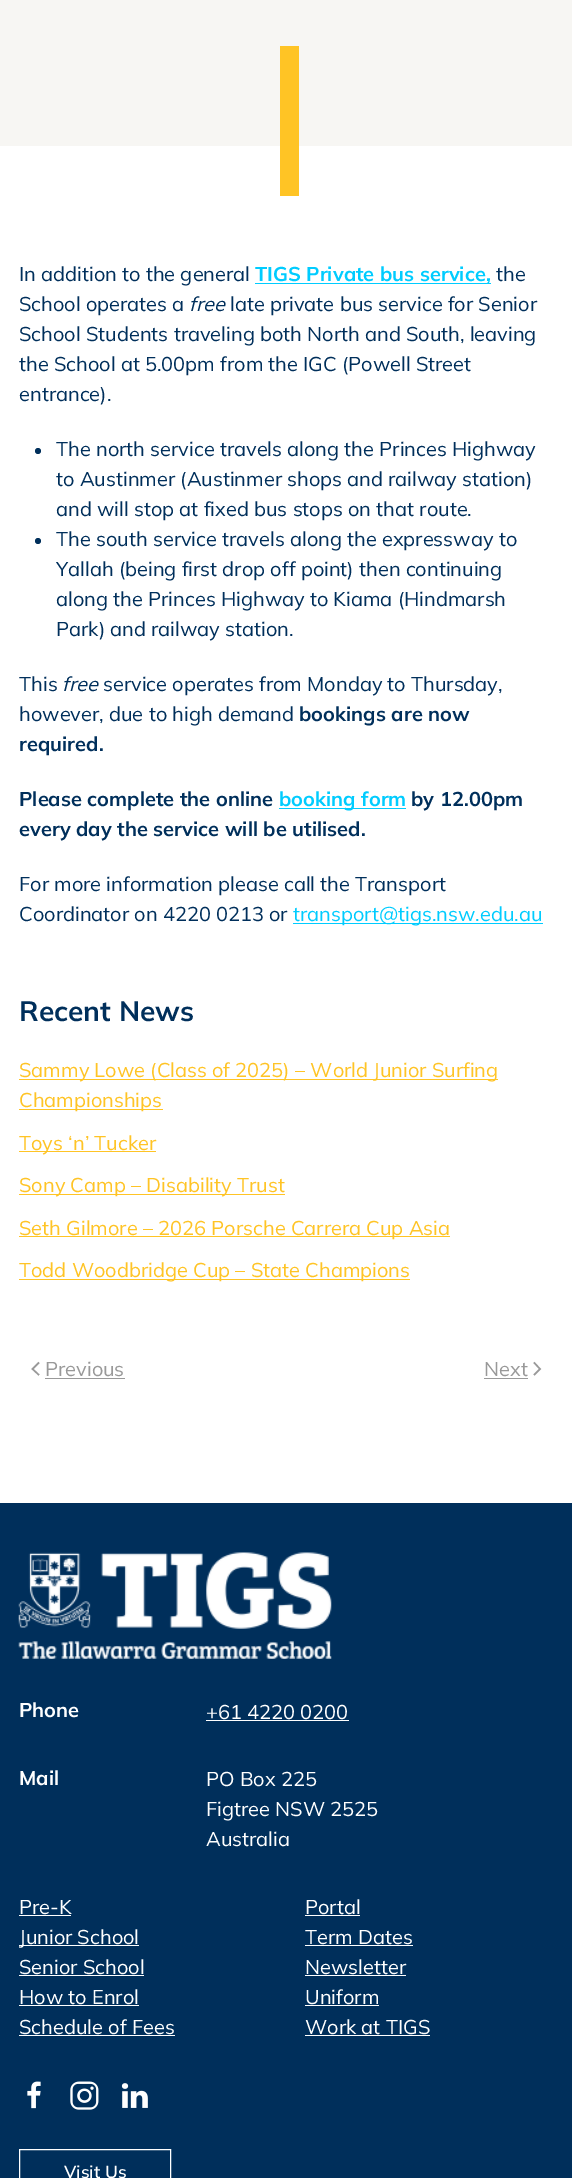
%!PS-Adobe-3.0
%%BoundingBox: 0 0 572 2178
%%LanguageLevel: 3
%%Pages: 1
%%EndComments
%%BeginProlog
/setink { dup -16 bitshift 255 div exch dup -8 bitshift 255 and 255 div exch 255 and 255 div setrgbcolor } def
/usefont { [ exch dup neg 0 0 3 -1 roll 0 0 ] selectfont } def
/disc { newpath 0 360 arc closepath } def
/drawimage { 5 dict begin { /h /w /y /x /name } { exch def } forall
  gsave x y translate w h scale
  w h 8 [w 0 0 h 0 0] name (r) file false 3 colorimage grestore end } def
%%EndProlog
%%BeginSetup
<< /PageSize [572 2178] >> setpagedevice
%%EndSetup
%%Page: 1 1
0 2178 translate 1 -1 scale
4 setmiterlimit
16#FFFFFF setink
0 0 572 2178 rectfill
16#F7F6F3 setink
0 0 572 146 rectfill
16#FFC425 setink
280 46 19 150 rectfill
/Mulish-ExtraLight 20 usefont
16#002F5B setink
19 281 moveto (In addition to the general) show
16#00CCFF setink
255 283 236 1 rectfill
/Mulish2-ExtraLight 20 usefont
255 281 moveto (TIGS Private bus service,) show
/Mulish-ExtraLight 20 usefont
16#002F5B setink
496 281 moveto (the) show
19 311 moveto (School operates a) show
/Mulish-ExtraLightItalic 20 usefont
189 311 moveto (free) show
/Mulish-ExtraLight 20 usefont
[
    [(late private bus service for Senior) 230 311]
    [(School Students traveling both North and South, leaving) 19 341]
    [(the School at 5.00pm from the IGC \(Powell Street) 19 371]
    [(entrance\).) 19 401]
] { aload pop moveto show } forall
38 451 3 disc fill
[
    [(The north service travels along the Princes Highway) 56 456]
    [(to Austinmer \(Austinmer shops and railway station\)) 56 486]
    [(and will stop at fixed bus stops on that route.) 56 516]
] { aload pop moveto show } forall
38 541 3 disc fill
[
    [(The south service travels along the expressway to) 56 546]
    [(Yallah \(being first drop off point\) then continuing) 56 576]
    [(along the Princes Highway to Kiama \(Hindmarsh) 56 606]
    [(Park\) and railway station.) 56 636]
    [(This) 19 691]
] { aload pop moveto show } forall
/Mulish-ExtraLightItalic 20 usefont
62 691 moveto (free) show
/Mulish-ExtraLight 20 usefont
103 691 moveto (service operates from Monday to Thursday,) show
19 721 moveto (however, due to high demand) show
/Mulish2-ExtraLight 20 usefont
[
    [(bookings are now) 299 721]
    [(required.) 19 751]
    [(Please complete the online) 19 806]
] { aload pop moveto show } forall
16#00CCFF setink
279 808 127 1 rectfill
279 806 moveto (booking form) show
16#002F5B setink
411 806 moveto (by 12.00pm) show
19 836 moveto (every day the service will be utilised.) show
/Mulish-ExtraLight 20 usefont
19 891 moveto (For more information please call the Transport) show
19 921 moveto (Coordinator on 4220 0213 or) show
16#00CCFF setink
293 923 250 1 rectfill
293 921 moveto (transport@tigs.nsw.edu.au) show
/Mulish2-ExtraLight 28 usefont
16#002F5B setink
19 1021 moveto (Recent News) show
16#FFC425 setink
19 1079 479 1 rectfill
/Mulish-ExtraLight 20 usefont
19 1077 moveto (Sammy Lowe \(Class of 2025\) – World Junior Surfing) show
19 1109 144 1 rectfill
19 1107 moveto (Championships) show
19 1151 137 1 rectfill
19 1150 moveto (Toys ‘n’ Tucker) show
19 1194 266 1 rectfill
19 1192 moveto (Sony Camp – Disability Trust) show
19 1236 431 1 rectfill
19 1235 moveto (Seth Gilmore – 2026 Porsche Carrera Cup Asia) show
19 1279 391 1 rectfill
19 1277 moveto (Todd Woodbridge Cup – State Champions) show
16#999999 setink
1.5 setlinewidth
39 1362.5 moveto 32.5 1369 lineto 39 1375 lineto stroke
45 1376 moveto (Previous) show
45 1378 80 1 rectfill
484 1376 moveto (Next) show
484 1378 44 1 rectfill
534 1362.5 moveto 540 1369 lineto 534 1375 lineto stroke
16#002F5B setink
0 1503 572 675 rectfill
(img1.raw) 18 1552 314 107 drawimage
/Mulish2-ExtraLight 20 usefont
16#FFFFFF setink
19 1717 moveto (Phone) show
/Mulish-ExtraLight 20 usefont
206 1719 moveto (+61 4220 0200) show
206 1720 143 1 rectfill
/Mulish2-ExtraLight 20 usefont
19 1785 moveto (Mail) show
/Mulish-ExtraLight 20 usefont
[
    [(PO Box 225) 206 1786]
    [(Figtree NSW 2525) 206 1816]
    [(Australia) 206 1846]
    [(Pre-K) 19 1914]
] { aload pop moveto show } forall
19 1915 52 1 rectfill
305 1914 moveto (Portal) show
305 1915 55 1 rectfill
19 1945 120 1 rectfill
19 1944 moveto (Junior School) show
305 1944 moveto (Term Dates) show
305 1945 108 1 rectfill
19 1974 moveto (Senior School) show
19 1975 125 1 rectfill
305 1974 moveto (Newsletter) show
305 1975 101 1 rectfill
19 2004 moveto (How to Enrol) show
19 2005 120 1 rectfill
305 2004 moveto (Uniform) show
305 2005 74 1 rectfill
19 2034 moveto (Schedule of Fees) show
19 2035 156 1 rectfill
305 2034 moveto (Work at TIGS) show
305 2035 125 1 rectfill
(img2.raw) 27 2081 14 28 drawimage
(img3.raw) 70 2081 29 29 drawimage
(img4.raw) 121 2083 27 25 drawimage
1 setlinewidth
19.5 2149.5 151 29 rectstroke
/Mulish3-ExtraLight 17.5 usefont
64 2178 moveto (Visit Us) show
showpage
%%EOF
